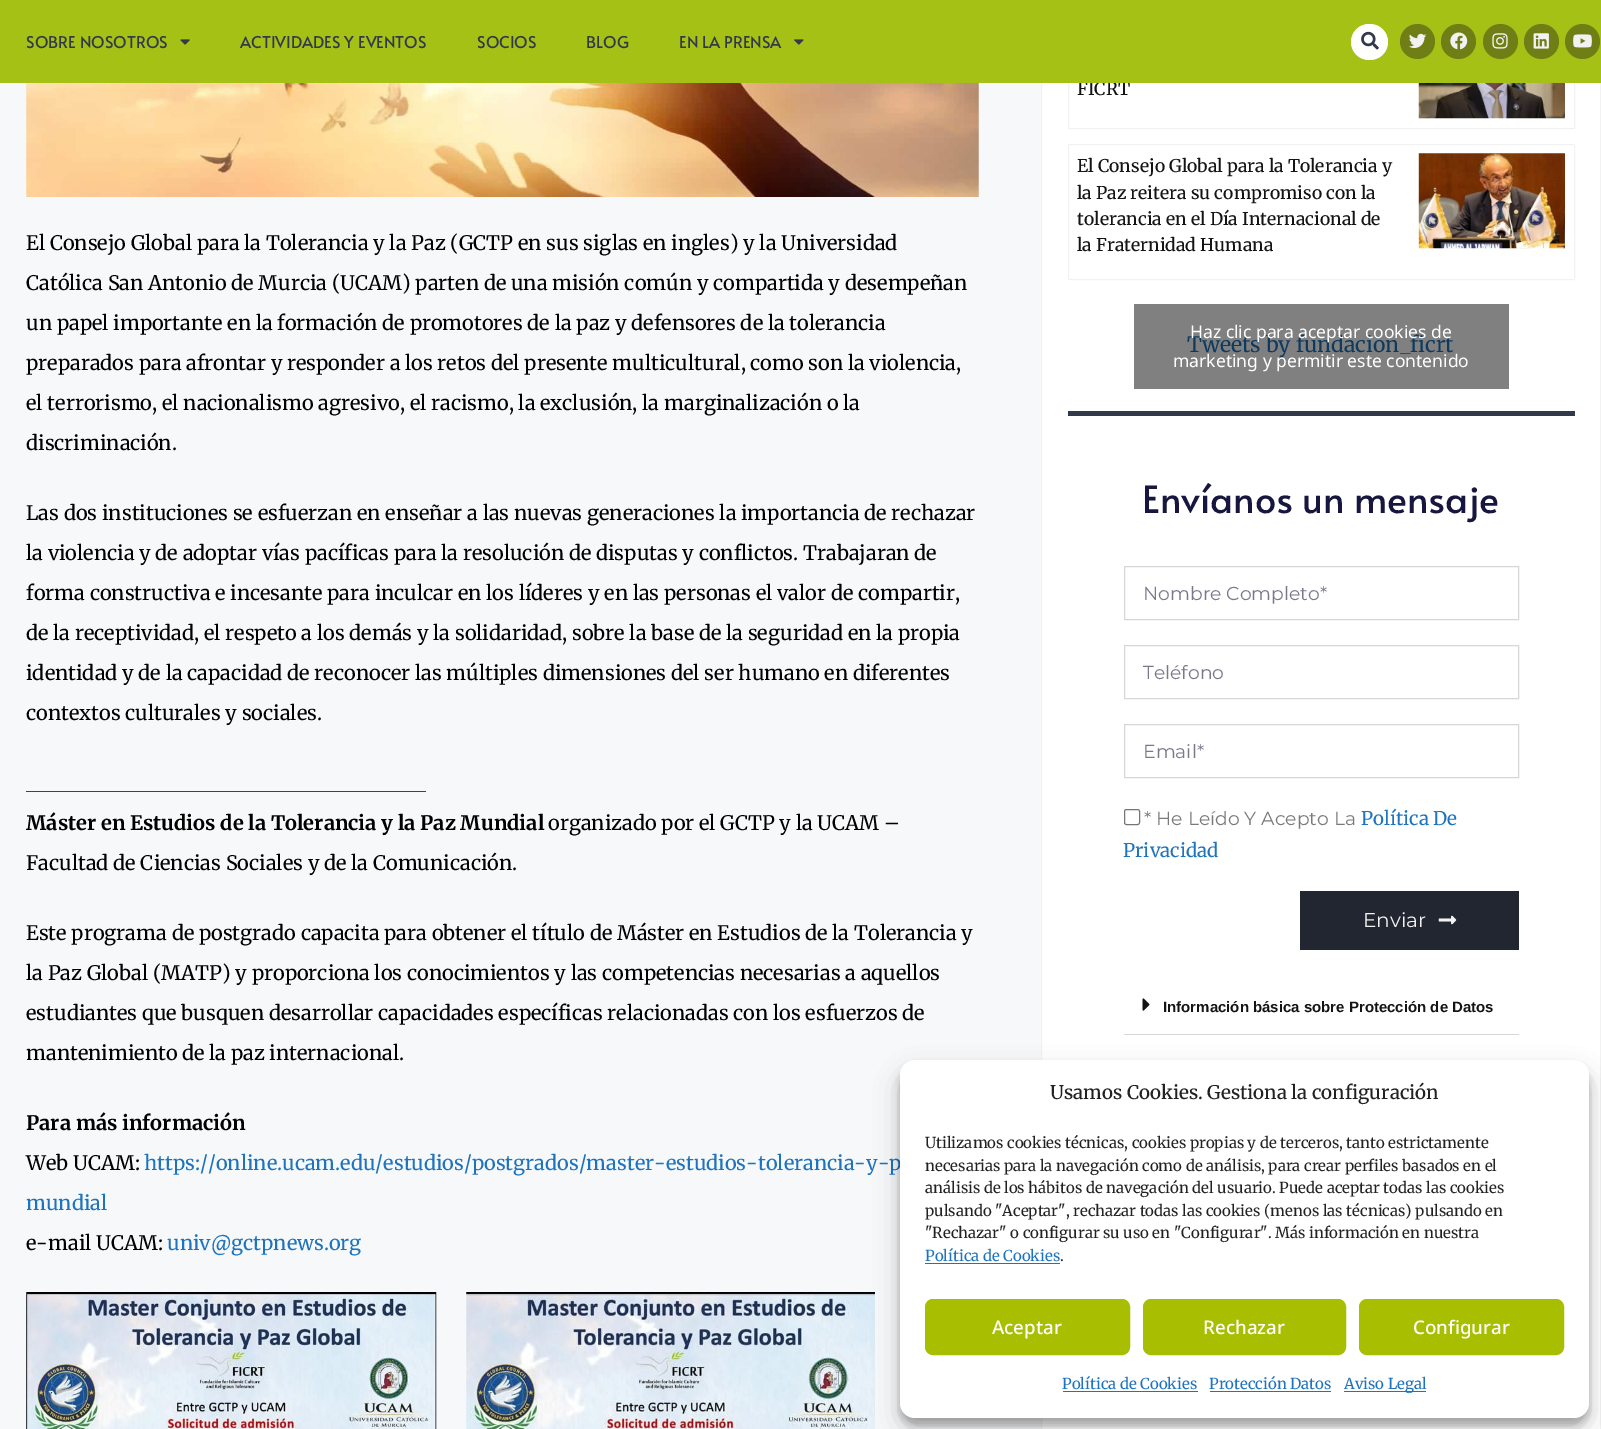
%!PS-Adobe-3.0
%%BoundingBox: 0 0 1601 1429
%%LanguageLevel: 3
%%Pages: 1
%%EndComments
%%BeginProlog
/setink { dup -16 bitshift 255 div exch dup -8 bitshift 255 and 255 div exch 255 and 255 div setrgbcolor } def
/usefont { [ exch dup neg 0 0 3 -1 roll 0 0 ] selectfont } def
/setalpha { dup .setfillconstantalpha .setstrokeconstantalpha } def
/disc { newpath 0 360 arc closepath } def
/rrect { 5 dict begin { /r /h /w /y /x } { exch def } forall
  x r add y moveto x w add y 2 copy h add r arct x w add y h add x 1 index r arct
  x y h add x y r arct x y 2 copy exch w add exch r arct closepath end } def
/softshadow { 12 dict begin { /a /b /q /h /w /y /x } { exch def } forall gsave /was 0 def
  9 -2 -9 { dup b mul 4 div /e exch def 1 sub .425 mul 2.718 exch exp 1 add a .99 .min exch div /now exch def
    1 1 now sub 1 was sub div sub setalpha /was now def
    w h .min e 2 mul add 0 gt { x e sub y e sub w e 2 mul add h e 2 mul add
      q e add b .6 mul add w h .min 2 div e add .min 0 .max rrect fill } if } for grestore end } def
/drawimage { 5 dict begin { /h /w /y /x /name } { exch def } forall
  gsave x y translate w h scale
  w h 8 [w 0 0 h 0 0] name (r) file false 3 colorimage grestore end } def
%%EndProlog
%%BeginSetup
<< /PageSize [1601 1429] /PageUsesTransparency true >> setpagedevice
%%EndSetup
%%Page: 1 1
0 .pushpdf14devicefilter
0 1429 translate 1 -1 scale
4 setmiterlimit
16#F7F8F9 setink
0 0 1601 1429 rectfill
16#FFFFFF setink
1042 83 558 1346 rectfill
16#808080 setink
1134 304 375 85 rectfill
16#F2F2F2 setink
1041.5 -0.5 559 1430 rectstroke
1068.5 14.5 506 114 0.5 rrect stroke
/Merriweather-Medium 17.5 usefont
16#141414 setink
1077 95 moveto (FICRT) show
16#A6C115 setink
0 0 1601 83 rectfill
/Alata-Regular 16.25 usefont
16#32394B setink
26 48 moveto (SOBRE NOSOTROS) show
(img1.raw) 180 39 10 6 drawimage
[
    [(ACTIVIDADES Y EVENTOS) 240 48]
    [(SOCIOS) 477 48]
    [(BLOG) 586 48]
    [(EN LA PRENSA) 679 48]
] { aload pop moveto show } forall
(img2.raw) 794 39 10 6 drawimage
16#FFFFFF setink
1351 24 37 36 18 rrect fill
(img3.raw) 1361 31 18 19 drawimage
16#6F7F15 setink
1417.5 41.5 17.5 disc fill
(img4.raw) 1409 33 18 16 drawimage
1458.5 41.5 17.5 disc fill
(img5.raw) 1450 32 18 18 drawimage
1500.5 41.5 17.5 disc fill
(img6.raw) 1492 33 16 16 drawimage
1541.5 41.5 17.5 disc fill
(img7.raw) 1533 33 16 16 drawimage
1582.5 41.5 17.5 disc fill
(img8.raw) 1573 34 19 14 drawimage
(img9.raw) 26 83 953 114 drawimage
/Merriweather-Regular 20 usefont
16#000000 setink
[
    [(El Consejo Global para la Tolerancia y la Paz \(GCTP en sus siglas en ingles\) y la Universidad) 26 250]
    [(Católica San Antonio de Murcia \(UCAM\) parten de una misión común y compartida y desempeñan) 26 290]
    [(un papel importante en la formación de promotores de la paz y defensores de la tolerancia) 26 330]
    [(preparados para afrontar y responder a los retos del presente multicultural, como son la violencia,) 26 370]
    [(el terrorismo, el nacionalismo agresivo, el racismo, la exclusión, la marginalización o la) 26 410]
    [(discriminación.) 26 450]
    [(Las dos instituciones se esfuerzan en enseñar a las nuevas generaciones la importancia de rechazar) 26 520]
    [(la violencia y de adoptar vías pacíficas para la resolución de disputas y conflictos. Trabajaran de) 26 560]
    [(forma constructiva e incesante para inculcar en los líderes y en las personas el valor de compartir,) 26 600]
    [(de la receptividad, el respeto a los demás y la solidaridad, sobre la base de la seguridad en la propia) 26 640]
    [(identidad y de la capacidad de reconocer las múltiples dimensiones del ser humano en diferentes) 26 680]
    [(contextos culturales y sociales.) 26 720]
] { aload pop moveto show } forall
/Merriweather-Bold 20 usefont
26 790 moveto (________________________________________) show
26 830 moveto (Máster en Estudios de la Tolerancia y la Paz Mundial) show
/Merriweather-Regular 20 usefont
[
    [(organizado por el GCTP y la UCAM –) 548 830]
    [(Facultad de Ciencias Sociales y de la Comunicación.) 26 870]
    [(Este programa de postgrado capacita para obtener el título de Máster en Estudios de la Tolerancia y) 26 940]
    [(la Paz Global \(MATP\) y proporciona los conocimientos y las competencias necesarias a aquellos) 26 980]
    [(estudiantes que busquen desarrollar capacidades específicas relacionadas con los esfuerzos de) 26 1020]
    [(mantenimiento de la paz internacional.) 26 1060]
] { aload pop moveto show } forall
/Merriweather-Bold 20 usefont
26 1130 moveto (Para más información) show
/Merriweather-Regular 20 usefont
26 1170 moveto (Web UCAM:) show
16#1E73BE setink
144 1170 moveto (https://online.ucam.edu/estudios/postgrados/master-estudios-tolerancia-y-p) show
26 1210 moveto (mundial) show
16#000000 setink
26 1250 moveto (e-mail UCAM:) show
16#1E73BE setink
167 1250 moveto (univ@gctpnews.org) show
(img10.raw) 26 1292 411 137 drawimage
(img11.raw) 466 1292 409 137 drawimage
(img12.raw) 1418 83 147 36 drawimage
16#F2F2F2 setink
1068.5 144.5 506 135 0.5 rrect stroke
/Merriweather-Medium 17.5 usefont
16#141414 setink
[
    [(El Consejo Global para la Tolerancia y) 1077 172]
    [(la Paz reitera su compromiso con la) 1077 199]
    [(tolerancia en el Día Internacional de) 1077 225]
    [(la Fraternidad Humana) 1077 251]
] { aload pop moveto show } forall
(img13.raw) 1418 153 147 96 drawimage
/Merriweather-Regular 21.25 usefont
16#0F3A5F setink
1187 352 moveto (Tweets by fundacion_ficrt) show
/NotoSans-Regular 17.5 usefont
16#FFFFFF setink
1190 338 moveto (Haz clic para aceptar cookies de) show
1173 367 moveto (marketing y permitir este contenido) show
16#32394B setink
1068 411 507 5 rectfill
/Alata-Regular 37.5 usefont
16#16163F setink
1142 513 moveto (Envíanos un mensaje) show
16#D7D7D9 setink
1124.5 566.5 394 53 rectstroke
/Montserrat-Regular 18.75 usefont
16#7A798C setink
1143 600 moveto (Nombre Completo*) show
16#D7D7D9 setink
1124.5 645.5 394 53 rectstroke
16#7A798C setink
1143 679 moveto (Teléfono) show
16#D7D7D9 setink
1124.5 724.5 394 53 rectstroke
16#7A798C setink
1143 758 moveto (Email*) show
16#767676 setink
1124.5 809.5 15 15 2 rrect stroke
16#7A7A7A setink
1144 825 moveto (* He Leído Y Acepto La) show
/Merriweather-Regular 18.75 usefont
16#1E73BE setink
1361 825 moveto (Política De) show
1123 857 moveto (Privacidad) show
16#222631 setink
1300 891 219 59 rectfill
/Montserrat-Regular 20 usefont
16#F2F2F2 setink
1363 927 moveto (Enviar) show
(img14.raw) 1438 915 19 10 drawimage
16#D5D8DC setink
1124 1034 395 1 rectfill
(img15.raw) 1142 998 8 13 drawimage
/LiberationSans-Bold 15 usefont
16#141414 setink
1163 1012 moveto (Información básica sobre Protección de Datos) show
16#000000 setink
900 1068 689 357 15 4 0.23 softshadow
900 1073 689 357 15 12.5 0.19 softshadow
16#FFFFFF setink
900 1060 689 358 15 rrect fill
/Merriweather-Medium 18.75 usefont
16#222222 setink
1050 1099 moveto (Usamos Cookies. Gestiona la configuración) show
/Merriweather-Regular 15 usefont
[
    [(Utilizamos cookies técnicas, cookies propias y de terceros, tanto estrictamente) 925 1148]
    [(necesarias para la navegación como de análisis, para crear perfiles basados en el) 925 1171]
    [(análisis de los hábitos de navegación del usuario. Puede aceptar todas las cookies) 925 1193]
    [(pulsando "Aceptar", rechazar todas las cookies \(menos las técnicas\) pulsando en) 925 1216]
    [("Rechazar" o configurar su uso en "Configurar". Más información en nuestra) 925 1238]
] { aload pop moveto show } forall
16#1E73BE setink
925 1261 moveto (Política de Cookies) show
925 1263 135 1 rectfill
16#222222 setink
1060 1261 moveto (.) show
16#A7BE01 setink
925.5 1299.5 204 55 7.5 rrect gsave fill grestore
stroke
/NotoSans-Medium 18.75 usefont
16#FFFFFF setink
992 1334 moveto (Aceptar) show
16#A7BE01 setink
1143.5 1299.5 202 55 7.5 rrect gsave fill grestore
stroke
16#FFFFFF setink
1203 1334 moveto (Rechazar) show
16#A7BE01 setink
1359.5 1299.5 204 55 7.5 rrect gsave fill grestore
stroke
16#FFFFFF setink
1413 1334 moveto (Configurar) show
/Merriweather-Regular 15 usefont
16#1E73BE setink
1062 1389 moveto (Política de Cookies) show
1063 1391 135 1 rectfill
1209 1389 moveto (Protección Datos) show
1210 1391 121 1 rectfill
1344 1391 82 1 rectfill
1344 1389 moveto (Aviso Legal) show
.poppdf14devicefilter showpage
%%EOF
